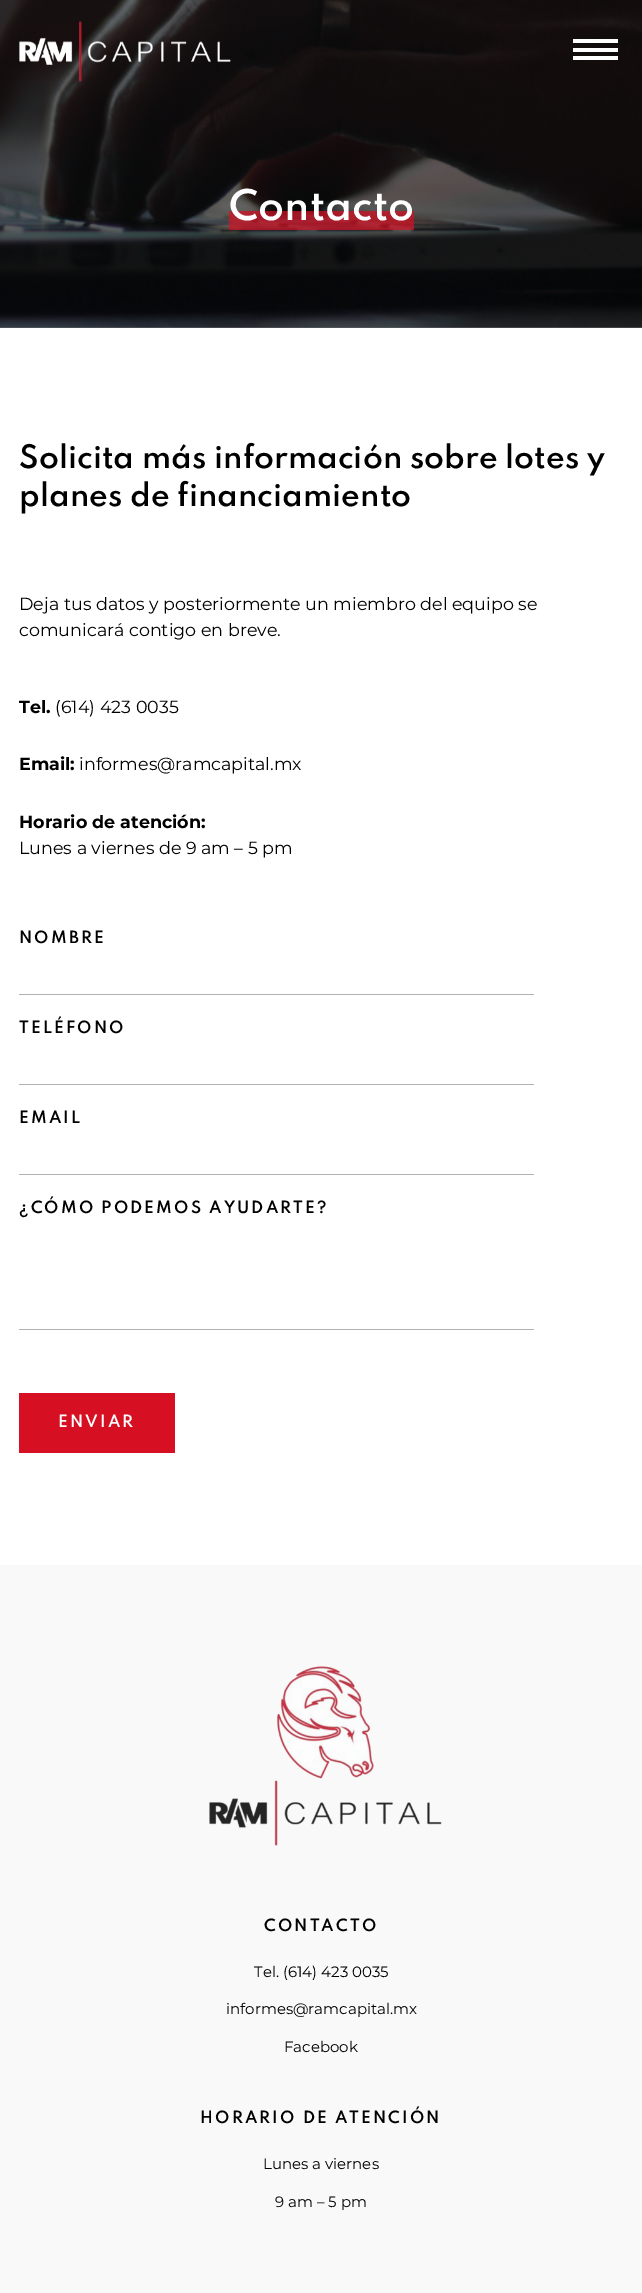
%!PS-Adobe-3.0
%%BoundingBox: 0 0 642 2293
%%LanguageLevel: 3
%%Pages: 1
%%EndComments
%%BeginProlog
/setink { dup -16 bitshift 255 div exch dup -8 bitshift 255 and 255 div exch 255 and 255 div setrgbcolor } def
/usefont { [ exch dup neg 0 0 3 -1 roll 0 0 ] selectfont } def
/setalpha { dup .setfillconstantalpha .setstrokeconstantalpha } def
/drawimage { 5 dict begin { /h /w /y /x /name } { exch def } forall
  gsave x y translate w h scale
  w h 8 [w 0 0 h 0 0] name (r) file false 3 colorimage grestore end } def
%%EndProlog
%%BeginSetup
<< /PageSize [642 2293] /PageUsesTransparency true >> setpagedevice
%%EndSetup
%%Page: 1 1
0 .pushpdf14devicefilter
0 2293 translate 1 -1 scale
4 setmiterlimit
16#FFFFFF setink
0 0 642 2293 rectfill
16#666666 setink
0 327 642 1 rectfill
(img2.raw) 0 0 642 328 drawimage
(img1.raw) 19 21 212 61 drawimage
[
    [573 39 45 4 16#FFFFFF]
    [573 48 45 4 16#FFFFFF]
    [573 56 45 4 16#FFFFFF]
] { aload pop setink rectfill } forall
0.7 setalpha
[
    [229 211 185 19 16#D60F22]
] { aload pop setink rectfill } forall
/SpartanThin-SemiBold 37.5 usefont
1 setalpha
16#FFFFFF setink
229 220 moveto (Contacto) show
/SpartanThin-SemiBold 28.75 usefont
16#000000 setink
19 468 moveto (Solicita más información sobre lotes y) show
19 506 moveto (planes de financiamiento) show
/Montserrat-Regular 17.5 usefont
19 610 moveto (Deja tus datos y posteriormente un miembro del equipo se) show
19 636 moveto (comunicará contigo en breve.) show
/Montserrat-Bold 17.5 usefont
19 713 moveto (Tel.) show
/Montserrat-Regular 17.5 usefont
55 713 moveto (\(614\) 423 0035) show
/Montserrat-Bold 17.5 usefont
19 770 moveto (Email:) show
/Montserrat-Regular 17.5 usefont
79 770 moveto (informes@ramcapital.mx) show
/Montserrat-Bold 17.5 usefont
19 828 moveto (Horario de atención:) show
/Montserrat-Regular 17.5 usefont
19 854 moveto (Lunes a viernes de 9 am – 5 pm) show
/SpartanThin-SemiBold 15 usefont
19 943 moveto 2.1 0 (NOMBRE) ashow
16#B1B1B1 setink
19 994 515 1 rectfill
16#000000 setink
19 1033 moveto 2.1 0 (TELÉFONO) ashow
16#B1B1B1 setink
19 1084 515 1 rectfill
16#000000 setink
19 1123 moveto 2.1 0 (EMAIL) ashow
16#B1B1B1 setink
19 1174 515 1 rectfill
16#000000 setink
19 1213 moveto 2.1 0 (¿CÓMO PODEMOS AYUDARTE?) ashow
16#B1B1B1 setink
19 1329 515 1 rectfill
16#D60F22 setink
19 1393 156 60 rectfill
16#FFFFFF setink
58 1427 moveto 2.1 0 (ENVIAR) ashow
16#F9F9F9 setink
0 1565 642 728 rectfill
(img3.raw) 209 1666 233 180 drawimage
16#000000 setink
264 1931 moveto 2.1 0 (CONTACTO) ashow
/Montserrat-Regular 15 usefont
[
    [(Tel. \(614\) 423 0035) 254 1977]
    [(informes@ramcapital.mx) 226 2014]
    [(Facebook) 284 2052]
] { aload pop moveto show } forall
/SpartanThin-SemiBold 15 usefont
200 2123 moveto 2.1 0 (HORARIO DE ATENCIÓN) ashow
/Montserrat-Regular 15 usefont
263 2169 moveto (Lunes a viernes) show
275 2207 moveto (9 am – 5 pm) show
.poppdf14devicefilter showpage
%%EOF
